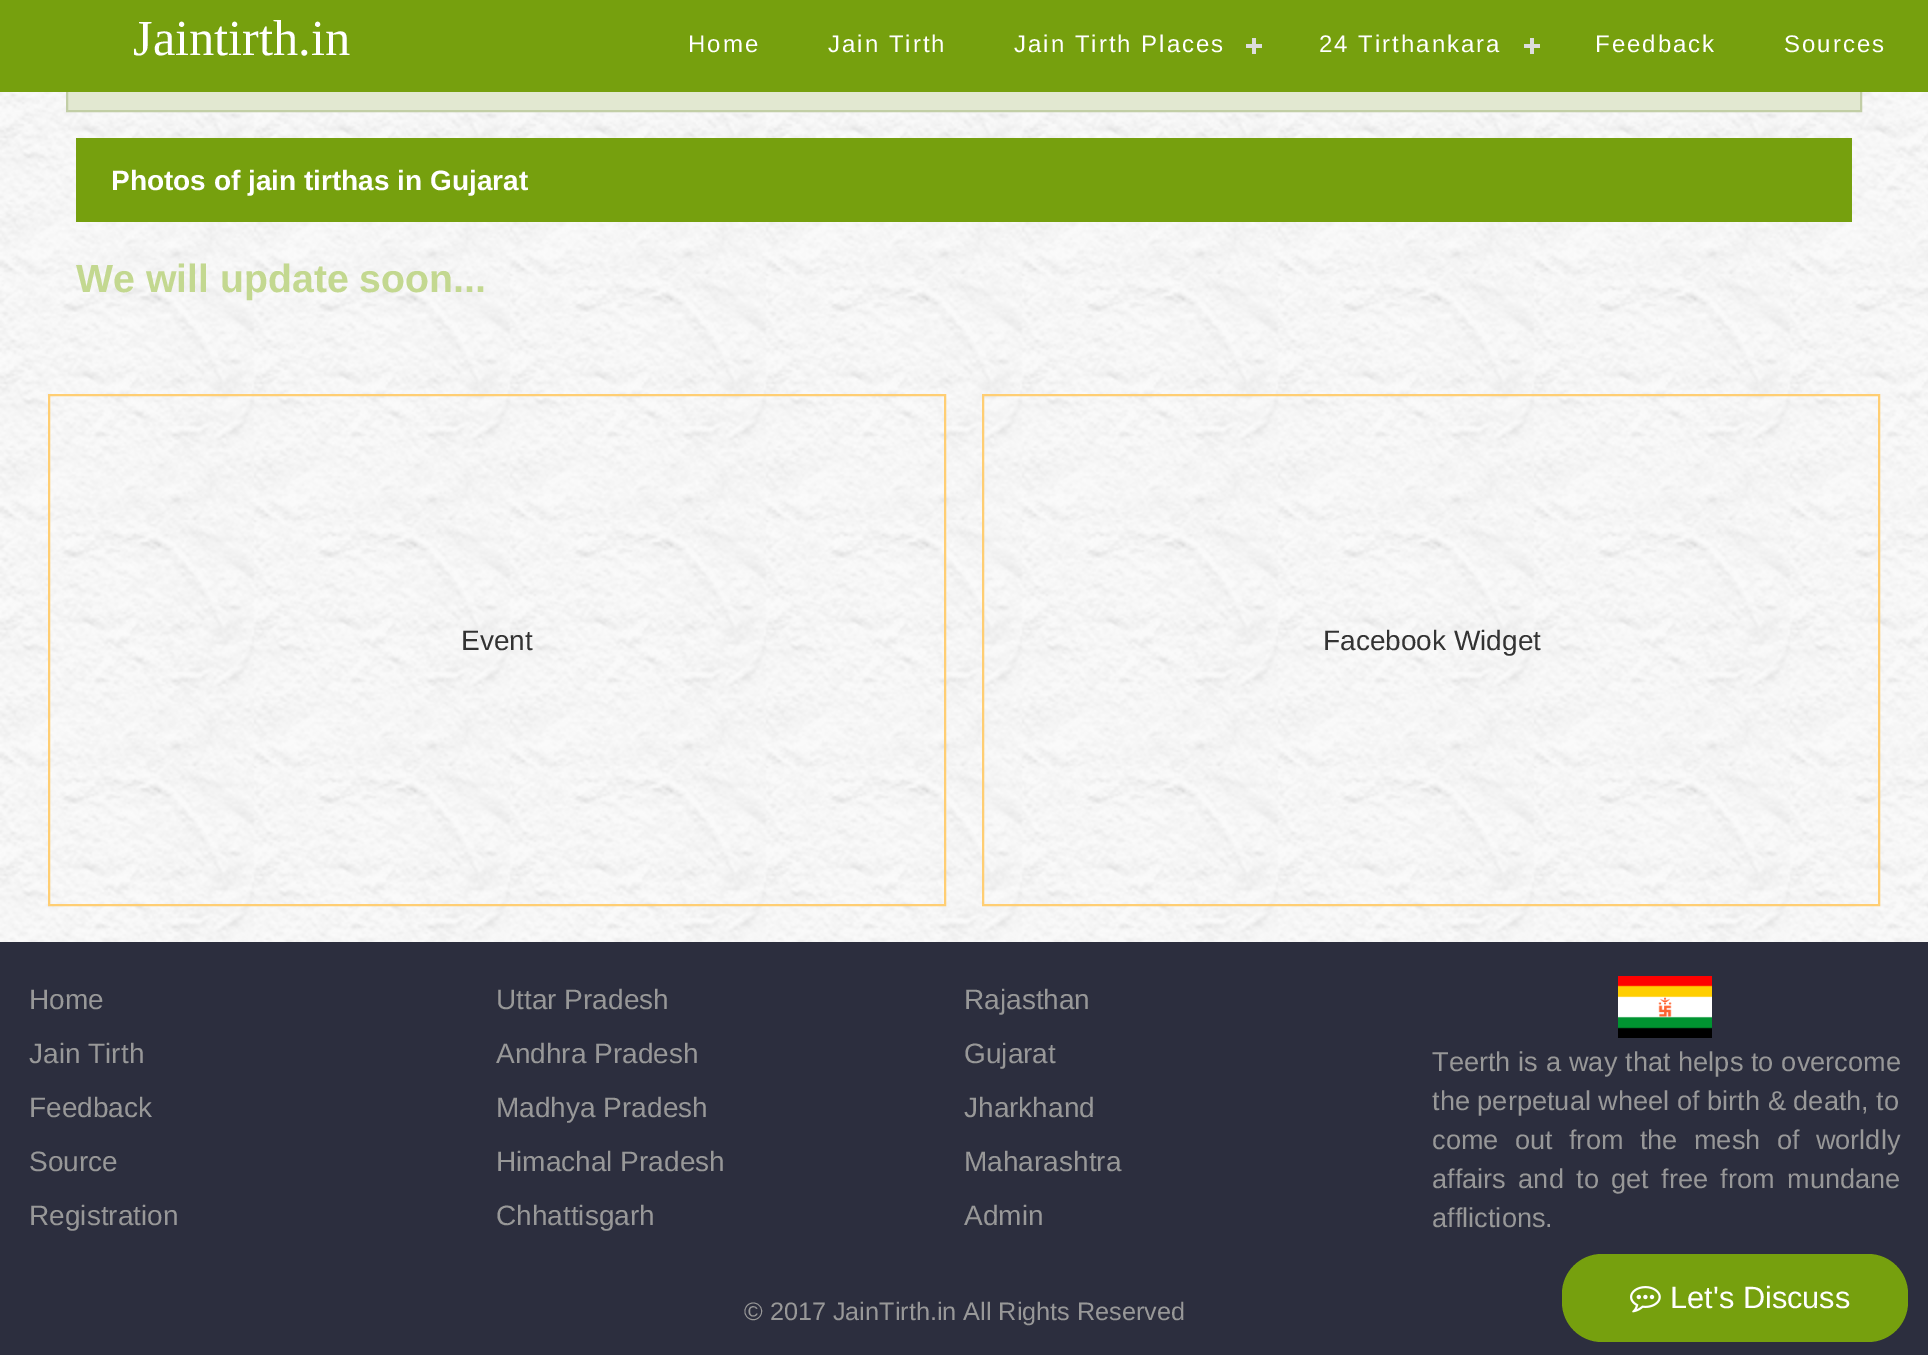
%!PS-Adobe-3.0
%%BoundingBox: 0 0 1928 1355
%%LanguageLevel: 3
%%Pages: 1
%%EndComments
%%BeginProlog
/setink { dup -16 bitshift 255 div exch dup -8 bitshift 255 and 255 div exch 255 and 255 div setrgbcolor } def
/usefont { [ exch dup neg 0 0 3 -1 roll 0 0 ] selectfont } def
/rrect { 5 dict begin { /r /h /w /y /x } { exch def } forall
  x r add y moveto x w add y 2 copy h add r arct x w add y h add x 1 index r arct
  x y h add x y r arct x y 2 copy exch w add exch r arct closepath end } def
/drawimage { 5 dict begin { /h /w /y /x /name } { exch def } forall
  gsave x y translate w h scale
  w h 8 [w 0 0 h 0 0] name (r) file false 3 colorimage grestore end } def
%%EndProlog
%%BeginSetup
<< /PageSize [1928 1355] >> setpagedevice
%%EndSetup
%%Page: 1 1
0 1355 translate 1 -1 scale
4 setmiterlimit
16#FFFFFF setink
0 0 1928 1355 rectfill
(img1.raw) 0 92 1928 850 drawimage
16#E2E8D1 setink
68 92 1792 18 rectfill
16#C2CEA6 setink
2 setlinewidth
67 -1 1794 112 rectstroke
16#76A00E setink
0 0 1928 92 rectfill
/LiberationSerif-Regular 50.5 usefont
16#FFFFFF setink
133 55 moveto (Jaintirth.in) show
/LiberationSans-Regular 24 usefont
688 52 moveto 2 0 (Home) ashow
828 52 moveto 2 0 (Jain Tirth) ashow
1014 52 moveto 2 0 (Jain Tirth Places) ashow
16#DDDDDD setink
1252 38 4 16 rectfill
1246 44 16 4 rectfill
16#FFFFFF setink
1319 52 moveto 2 0 (24 Tirthankara) ashow
16#DDDDDD setink
1530 38 4 16 rectfill
1524 44 16 4 rectfill
16#FFFFFF setink
1595 52 moveto 2 0 (Feedback) ashow
1784 52 moveto 2 0 (Sources) ashow
16#76A00E setink
76 138 1776 84 rectfill
/LiberationSans-Bold 28 usefont
16#FFFFFF setink
111 190 moveto (Photos of jain tirthas in Gujarat) show
/LiberationSans-Bold 39.25 usefont
16#C3D890 setink
76 292 moveto (We will update soon...) show
16#FFCE73 setink
49 395 896 510 rectstroke
/LiberationSans-Regular 28 usefont
16#333333 setink
461 650 moveto (Event) show
16#FFCE73 setink
983 395 896 510 rectstroke
16#333333 setink
1323 650 moveto (Facebook Widget) show
16#2C2E3E setink
0 942 1928 413 rectfill
16#989898 setink
[
    [(Home) 29 1009]
    [(Jain Tirth) 29 1063]
    [(Feedback) 29 1117]
    [(Source) 29 1171]
    [(Registration) 29 1225]
    [(Uttar Pradesh) 496 1009]
    [(Andhra Pradesh) 496 1063]
    [(Madhya Pradesh) 496 1117]
    [(Himachal Pradesh) 496 1171]
    [(Chhattisgarh) 496 1225]
    [(Rajasthan) 964 1009]
    [(Gujarat) 964 1063]
    [(Jharkhand) 964 1117]
    [(Maharashtra) 964 1171]
    [(Admin) 964 1225]
] { aload pop moveto show } forall
(img2.raw) 1618 976 94 62 drawimage
/LiberationSans-Regular 27.2 usefont
1432 1071 moveto 0.25 0 32 (Teerth is a way that helps to overcome) widthshow
1432 1110 moveto (the perpetual wheel of birth & death, to) show
1432 1149 moveto 8.75 0 32 (come out from the mesh of worldly) widthshow
1432 1188 moveto 4.75 0 32 (affairs and to get free from mundane) widthshow
1432 1227 moveto (afflictions.) show
/LiberationSans-Regular 25.25 usefont
744 1320 moveto (© 2017 JainTirth.in All Rights Reserved) show
16#76A00E setink
1562 1254 346 88 40 rrect fill
(img3.raw) 1630 1286 31 27 drawimage
/LiberationSans-Regular 30.75 usefont
16#FFFFFF setink
1670 1308 moveto (Let's Discuss) show
showpage
%%EOF
